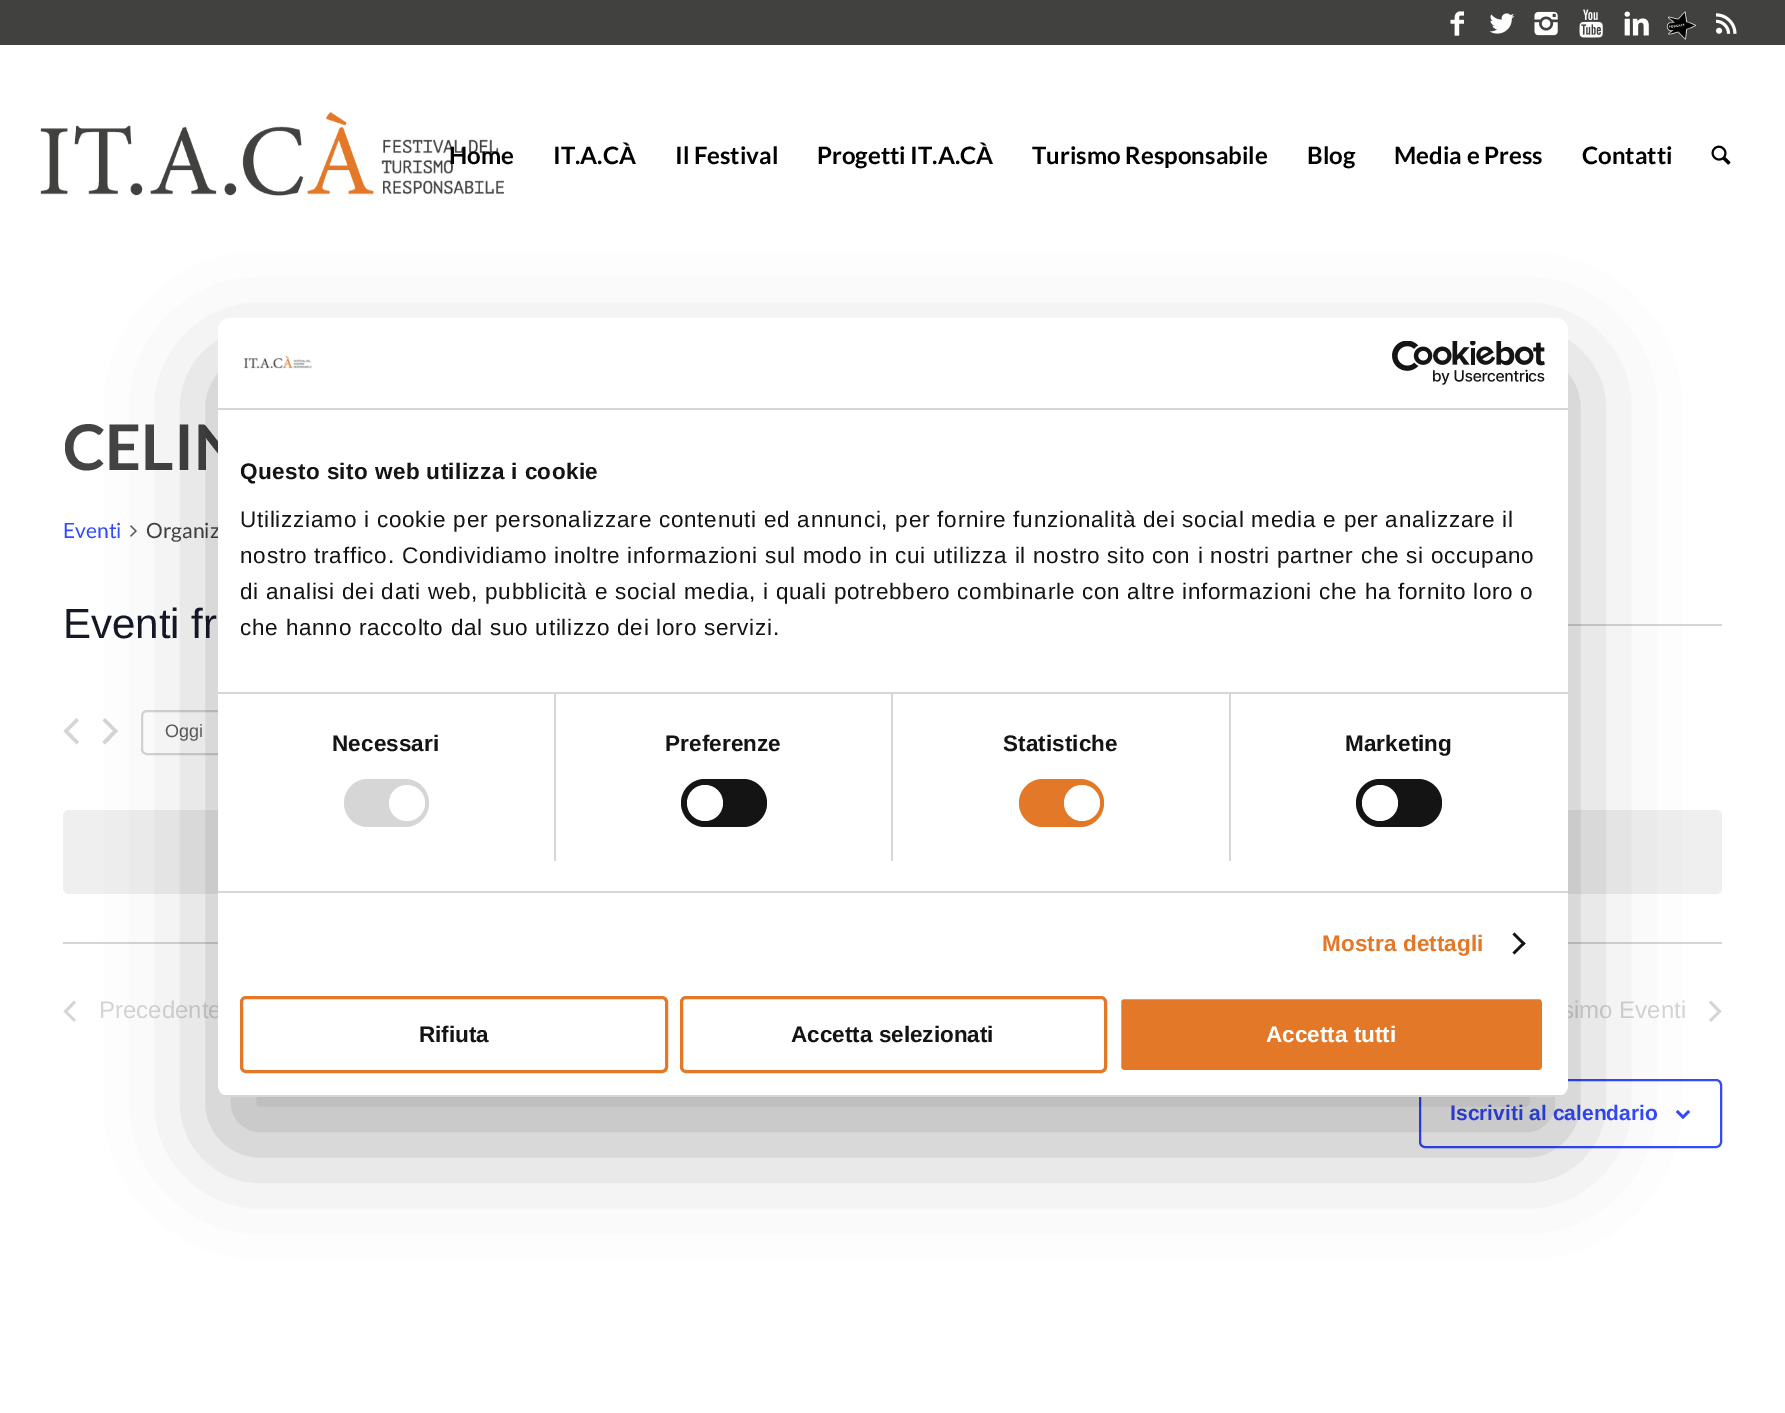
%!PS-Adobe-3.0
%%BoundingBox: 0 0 1785 1413
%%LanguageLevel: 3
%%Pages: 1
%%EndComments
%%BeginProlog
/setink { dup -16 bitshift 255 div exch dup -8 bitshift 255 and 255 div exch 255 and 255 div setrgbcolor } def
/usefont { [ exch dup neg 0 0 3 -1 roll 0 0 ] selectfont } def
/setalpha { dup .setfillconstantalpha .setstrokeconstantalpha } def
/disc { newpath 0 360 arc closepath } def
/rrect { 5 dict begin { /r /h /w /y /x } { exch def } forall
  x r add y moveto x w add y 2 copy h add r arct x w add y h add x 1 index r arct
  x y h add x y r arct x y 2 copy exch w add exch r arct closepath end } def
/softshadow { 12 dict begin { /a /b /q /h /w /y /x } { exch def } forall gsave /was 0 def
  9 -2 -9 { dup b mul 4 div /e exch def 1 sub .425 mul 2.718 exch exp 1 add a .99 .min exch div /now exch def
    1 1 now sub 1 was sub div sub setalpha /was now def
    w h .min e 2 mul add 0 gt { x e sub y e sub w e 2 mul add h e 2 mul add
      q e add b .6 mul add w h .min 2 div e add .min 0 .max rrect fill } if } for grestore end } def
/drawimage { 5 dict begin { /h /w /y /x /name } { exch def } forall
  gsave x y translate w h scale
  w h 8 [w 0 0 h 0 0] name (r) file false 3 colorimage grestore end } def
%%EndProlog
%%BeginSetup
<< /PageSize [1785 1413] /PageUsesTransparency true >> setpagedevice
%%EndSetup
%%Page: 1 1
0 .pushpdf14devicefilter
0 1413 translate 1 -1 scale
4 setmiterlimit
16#FFFFFF setink
0 0 1785 1413 rectfill
16#414140 setink
0 0 1785 45 rectfill
(img1.raw) 1450 11 14 25 drawimage
(img2.raw) 1489 13 26 21 drawimage
(img3.raw) 1534 11 24 25 drawimage
(img4.raw) 1579 9 24 29 drawimage
(img5.raw) 1624 11 25 25 drawimage
(img6.raw) 1666 11 31 29 drawimage
(img7.raw) 1716 13 21 21 drawimage
(img8.raw) 40 112 464 84 drawimage
/Lato-Bold 24 usefont
16#000000 setink
[
    [(Home) 449 164]
    [(IT.A.CÀ) 553 164]
    [(Il Festival) 675 164]
    [(Progetti IT.A.CÀ) 817 164]
    [(Turismo Responsabile) 1032 164]
    [(Blog) 1307 164]
    [(Media e Press) 1394 164]
    [(Contatti) 1582 164]
] { aload pop moveto show } forall
(img9.raw) 1711 145 20 20 drawimage
/Lato-Bold 63 usefont
16#444444 setink
63 470 moveto (CELIN) show
/Lato-Regular 21 usefont
16#334AFF setink
63 538 moveto (Eventi) show
(img10.raw) 130 525 7 12 drawimage
16#444444 setink
146 538 moveto (Organiz) show
/LiberationSans-Regular 42 usefont
16#141827 setink
63 638 moveto (Eventi fr) show
16#D5D5D5 setink
1568 624 154 2 rectfill
79 742 moveto 76.5 744.5 lineto 63.5 731 lineto 76.5 718 lineto 79 720.5 lineto 68.5 731 lineto closepath 102.5 720.5 moveto 105 718 lineto 118 731 lineto 105 744.5 lineto 102.5 742 lineto 113 731 lineto closepath fill
2 setlinewidth
142 711 84 43 5 rrect stroke
/LiberationSans-Regular 18 usefont
16#5D5D5D setink
165 737 moveto (Oggi) show
16#EFEFF0 setink
63 810 1659 84 6 rrect fill
16#D5D5D5 setink
63 942 1659 2 rectfill
76 1020 moveto 74 1022 lineto 63.5 1011.5 lineto 74 1000.5 lineto 76 1002.5 lineto 67.5 1011.5 lineto closepath fill
/LiberationSans-Regular 24 usefont
99 1018 moveto (Precedente) show
1562 1018 moveto (simo Eventi) show
1709 1002.5 moveto 1711 1000.5 lineto 1721.5 1011.5 lineto 1711 1022 lineto 1709 1020 lineto 1717.5 1011.5 lineto closepath fill
16#334AFF setink
1420 1080 301 67 5 rrect stroke
/LiberationSans-Bold 21 usefont
1450 1120 moveto (Iscriviti al calendario) show
(img11.raw) 1676 1110 15 9 drawimage
16#000000 setink
218 366 1350 779 12 51 0.3 softshadow
16#FFFFFF setink
218 318 1350 779 12 rrect fill
16#D6D6D6 setink
218 408 1350 2 rectfill
(img12.raw) 243 356 69 13 drawimage
(img13.raw) 1392 341 153 44 drawimage
[
    [554 693 2 168 16#D6D6D6]
    [891 693 2 168 16#D6D6D6]
    [1229 693 2 168 16#D6D6D6]
    [218 692 1350 2 16#D6D6D6]
] { aload pop setink rectfill } forall
/LiberationSans-Bold 22.5 usefont
16#141414 setink
240 479 moveto 0.4 0 (Questo sito web utilizza i cookie) ashow
/LiberationSans-Regular 22.5 usefont
240 527 moveto 0.75 0 (Utilizziamo i cookie per personalizzare contenuti ed annunci, per fornire funzionalità dei social media e per analizzare il) ashow
240 563 moveto 0.75 0 (nostro traffico. Condividiamo inoltre informazioni sul modo in cui utilizza il nostro sito con i nostri partner che si occupano) ashow
240 599 moveto 0.75 0 (di analisi dei dati web, pubblicità e social media, i quali potrebbero combinarle con altre informazioni che ha fornito loro o) ashow
240 635 moveto 0.75 0 (che hanno raccolto dal suo utilizzo dei loro servizi.) ashow
16#D6D6D6 setink
218 891 1350 2 rectfill
/LiberationSans-Bold 22.5 usefont
16#141414 setink
332 751 moveto 0.1 0 (Necessari) ashow
16#D6D6D6 setink
344 779 85 48 24 rrect fill
16#FFFFFF setink
407 803 18 disc fill
16#141414 setink
665 751 moveto 0.1 0 (Preferenze) ashow
681 779 86 48 24 rrect fill
16#FFFFFF setink
705 803 18 disc fill
16#141414 setink
1003 751 moveto 0.1 0 (Statistiche) ashow
16#E37828 setink
1019 779 85 48 24 rrect fill
16#FFFFFF setink
1082 803 18 disc fill
16#141414 setink
1345 751 moveto 0.1 0 (Marketing) ashow
1356 779 86 48 24 rrect fill
16#FFFFFF setink
1380 803 18 disc fill
16#E37828 setink
1322 951 moveto 0.1 0 (Mostra dettagli) ashow
16#141414 setink
1514.5 932.5 moveto 1525.5 943.5 lineto 1523.5 945.5 lineto 1512.5 934.5 lineto closepath fill
1523.5 941.5 moveto 1525.5 943.5 lineto 1514.5 954.5 lineto 1512.5 952.5 lineto closepath fill
gsave
218 318 1350 779 12 rrect clip newpath
16#D6D6D6 setink
218 1095 1350 2 rectfill
grestore
16#E37828 setink
3 setlinewidth
241.5 997.5 425 74 4.5 rrect stroke
16#141414 setink
419 1042 moveto (Rifiuta) show
16#E37828 setink
681.5 997.5 424 74 4.5 rrect stroke
16#141414 setink
791 1042 moveto (Accetta selezionati) show
16#E37828 setink
1119.5 997.5 424 74 4.5 rrect gsave fill grestore
16#FFFFFF setink
stroke
1266 1042 moveto (Accetta tutti) show
.poppdf14devicefilter showpage
%%EOF
